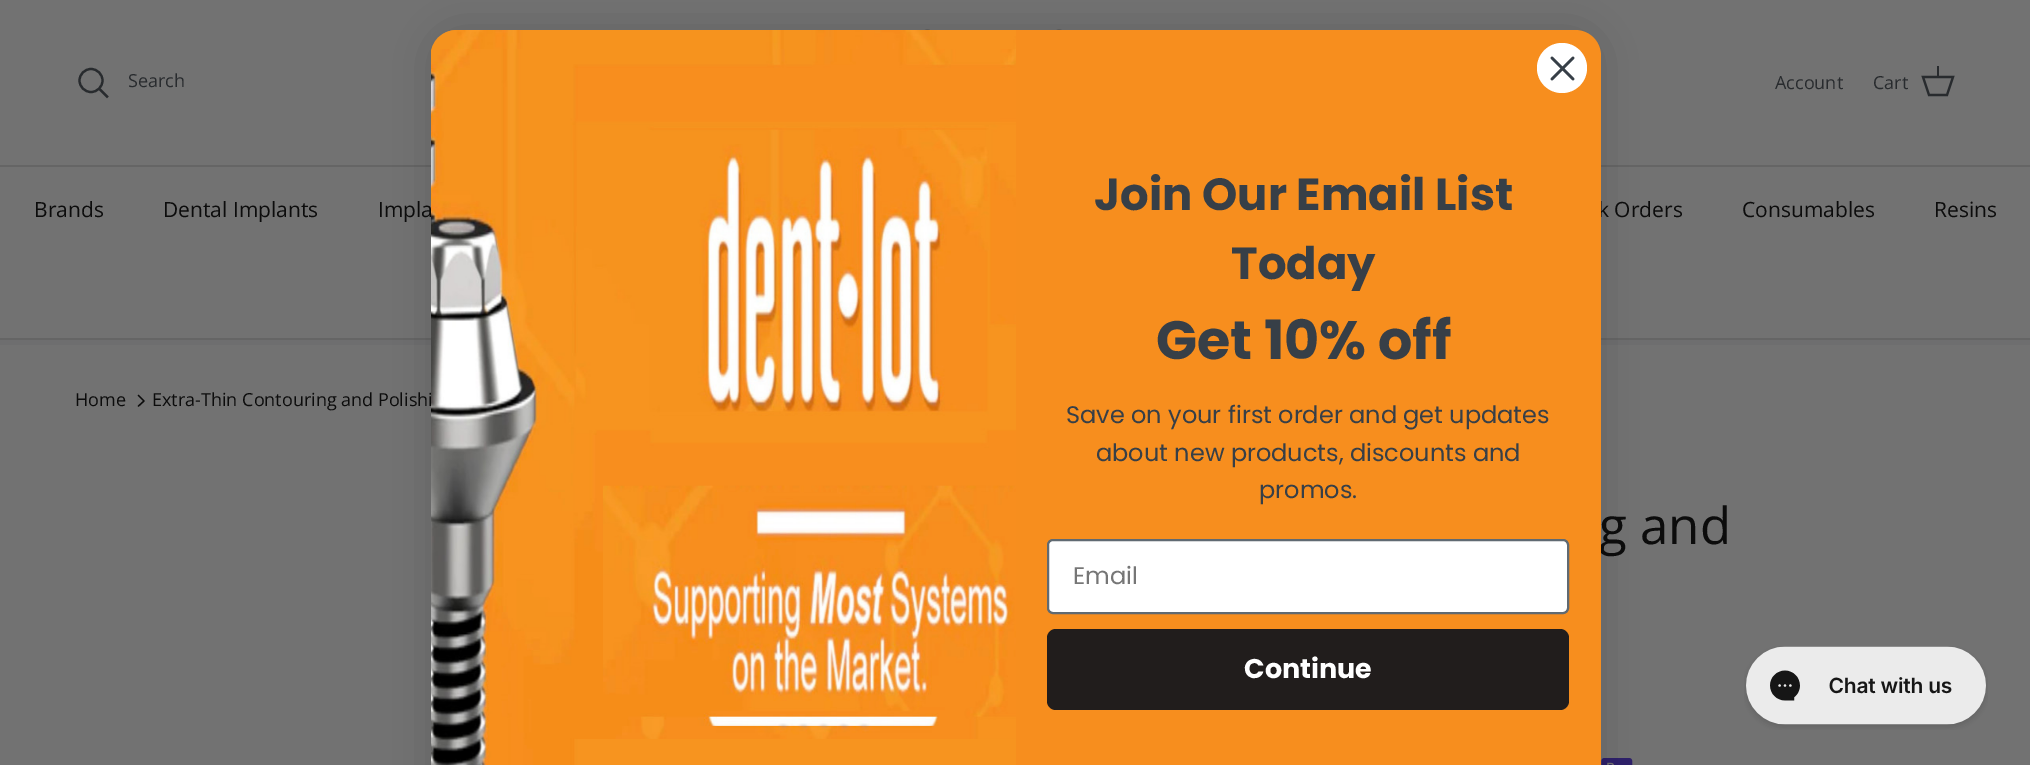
%!PS-Adobe-3.0
%%BoundingBox: 0 0 2030 765
%%LanguageLevel: 3
%%Pages: 1
%%EndComments
%%BeginProlog
/setink { dup -16 bitshift 255 div exch dup -8 bitshift 255 and 255 div exch 255 and 255 div setrgbcolor } def
/usefont { [ exch dup neg 0 0 3 -1 roll 0 0 ] selectfont } def
/setalpha { dup .setfillconstantalpha .setstrokeconstantalpha } def
/disc { newpath 0 360 arc closepath } def
/rrect { 5 dict begin { /r /h /w /y /x } { exch def } forall
  x r add y moveto x w add y 2 copy h add r arct x w add y h add x 1 index r arct
  x y h add x y r arct x y 2 copy exch w add exch r arct closepath end } def
/softshadow { 12 dict begin { /a /b /q /h /w /y /x } { exch def } forall gsave /was 0 def
  9 -2 -9 { dup b mul 4 div /e exch def 1 sub .425 mul 2.718 exch exp 1 add a .99 .min exch div /now exch def
    1 1 now sub 1 was sub div sub setalpha /was now def
    w h .min e 2 mul add 0 gt { x e sub y e sub w e 2 mul add h e 2 mul add
      q e add b .6 mul add w h .min 2 div e add .min 0 .max rrect fill } if } for grestore end } def
/drawimage { 5 dict begin { /h /w /y /x /name } { exch def } forall
  gsave x y translate w h scale
  w h 8 [w 0 0 h 0 0] name (r) file false 3 colorimage grestore end } def
%%EndProlog
%%BeginSetup
<< /PageSize [2030 765] /PageUsesTransparency true >> setpagedevice
%%EndSetup
%%Page: 1 1
0 .pushpdf14devicefilter
0 765 translate 1 -1 scale
4 setmiterlimit
16#727272 setink
0 0 2030 765 rectfill
16#656565 setink
0 165 2030 2 rectfill
(img1.raw) 924 29 138 1 drawimage
16#282B2E setink
2.2 setlinewidth
91 80.5 11.5 disc stroke
/OpenSans-Regular 18 usefont
128 87 moveto (Search) show
2 setlinecap
100.5 90 moveto 107 96.5 lineto stroke
1775 89 moveto (Account) show
1873 89 moveto (Cart) show
0 setlinecap
1923 77 moveto 1953 77 lineto 1947 95 lineto 1929 95 lineto closepath stroke
1937 66 2 12 rectfill
16#656565 setink
0 338 2030 2 rectfill
/OpenSans-Regular 21 usefont
16#0C0C0C setink
[
    [(Brands) 34 217]
    [(Dental Implants) 163 217]
    [(Impla) 378 217]
    [(k Orders) 1598 217]
    [(Consumables) 1742 217]
    [(Resins) 1934 217]
] { aload pop moveto show } forall
16#6E6E6F setink
0 340 2030 5 rectfill
(img3.raw) 1601 758 32 7 drawimage
16#000000 setink
431 30 1170 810 26 22.5 0.15 softshadow
/OpenSans-Regular 18 usefont
16#0C0C0C setink
152 406 moveto (Extra-Thin Contouring and Polishi) show
/OpenSans-Regular 51 usefont
1599 544 moveto (g and) show
16#F78E1E setink
457 30 moveto 1575 30 lineto 1589.5 30 1601 41.5 1601 56 curveto 1601 765 lineto 431 765 lineto 431 56 lineto 431 41.5 442.5 30 457 30 curveto closepath fill
16#FFFFFF setink
1562 68 25 disc fill
16#373F47 setink
2.6 setlinewidth
1 setlinecap
1 setlinejoin
1552 58 moveto 1573 79 lineto 1552 79 moveto 1573 58 lineto closepath stroke
(img2.raw) 431 30 585 735 drawimage
/Poppins-Bold 45 usefont
1094 210 moveto (Join Our Email List) show
1231 279 moveto (Today) show
/Poppins-Bold 54 usefont
1156 359 moveto (Get 10% off) show
/Poppins-Regular 24 usefont
[
    [(Save on your first order and get updates) 1066 423]
    [(about new products, discounts and) 1096 461]
    [(promos.) 1259 498]
] { aload pop moveto show } forall
16#FFFFFF setink
1048 540 520 73 5 rrect gsave fill grestore
16#606A72 setink
2 setlinewidth
0 setlinecap
0 setlinejoin
stroke
16#767676 setink
1073 584 moveto (Email) show
16#211D1C setink
1047 629 522 81 9 rrect fill
/Poppins-Bold 27 usefont
16#FFFFFF setink
1244 678 moveto (Continue) show
/OpenSans-Regular 18 usefont
16#0C0C0C setink
75 406 moveto (Home) show
1.3 setlinewidth
1 setlinecap
1 setlinejoin
138.5 406 moveto 144 401 lineto 138.5 395.5 lineto stroke
(img4.raw) 1744 646 244 84 drawimage
.poppdf14devicefilter showpage
%%EOF
